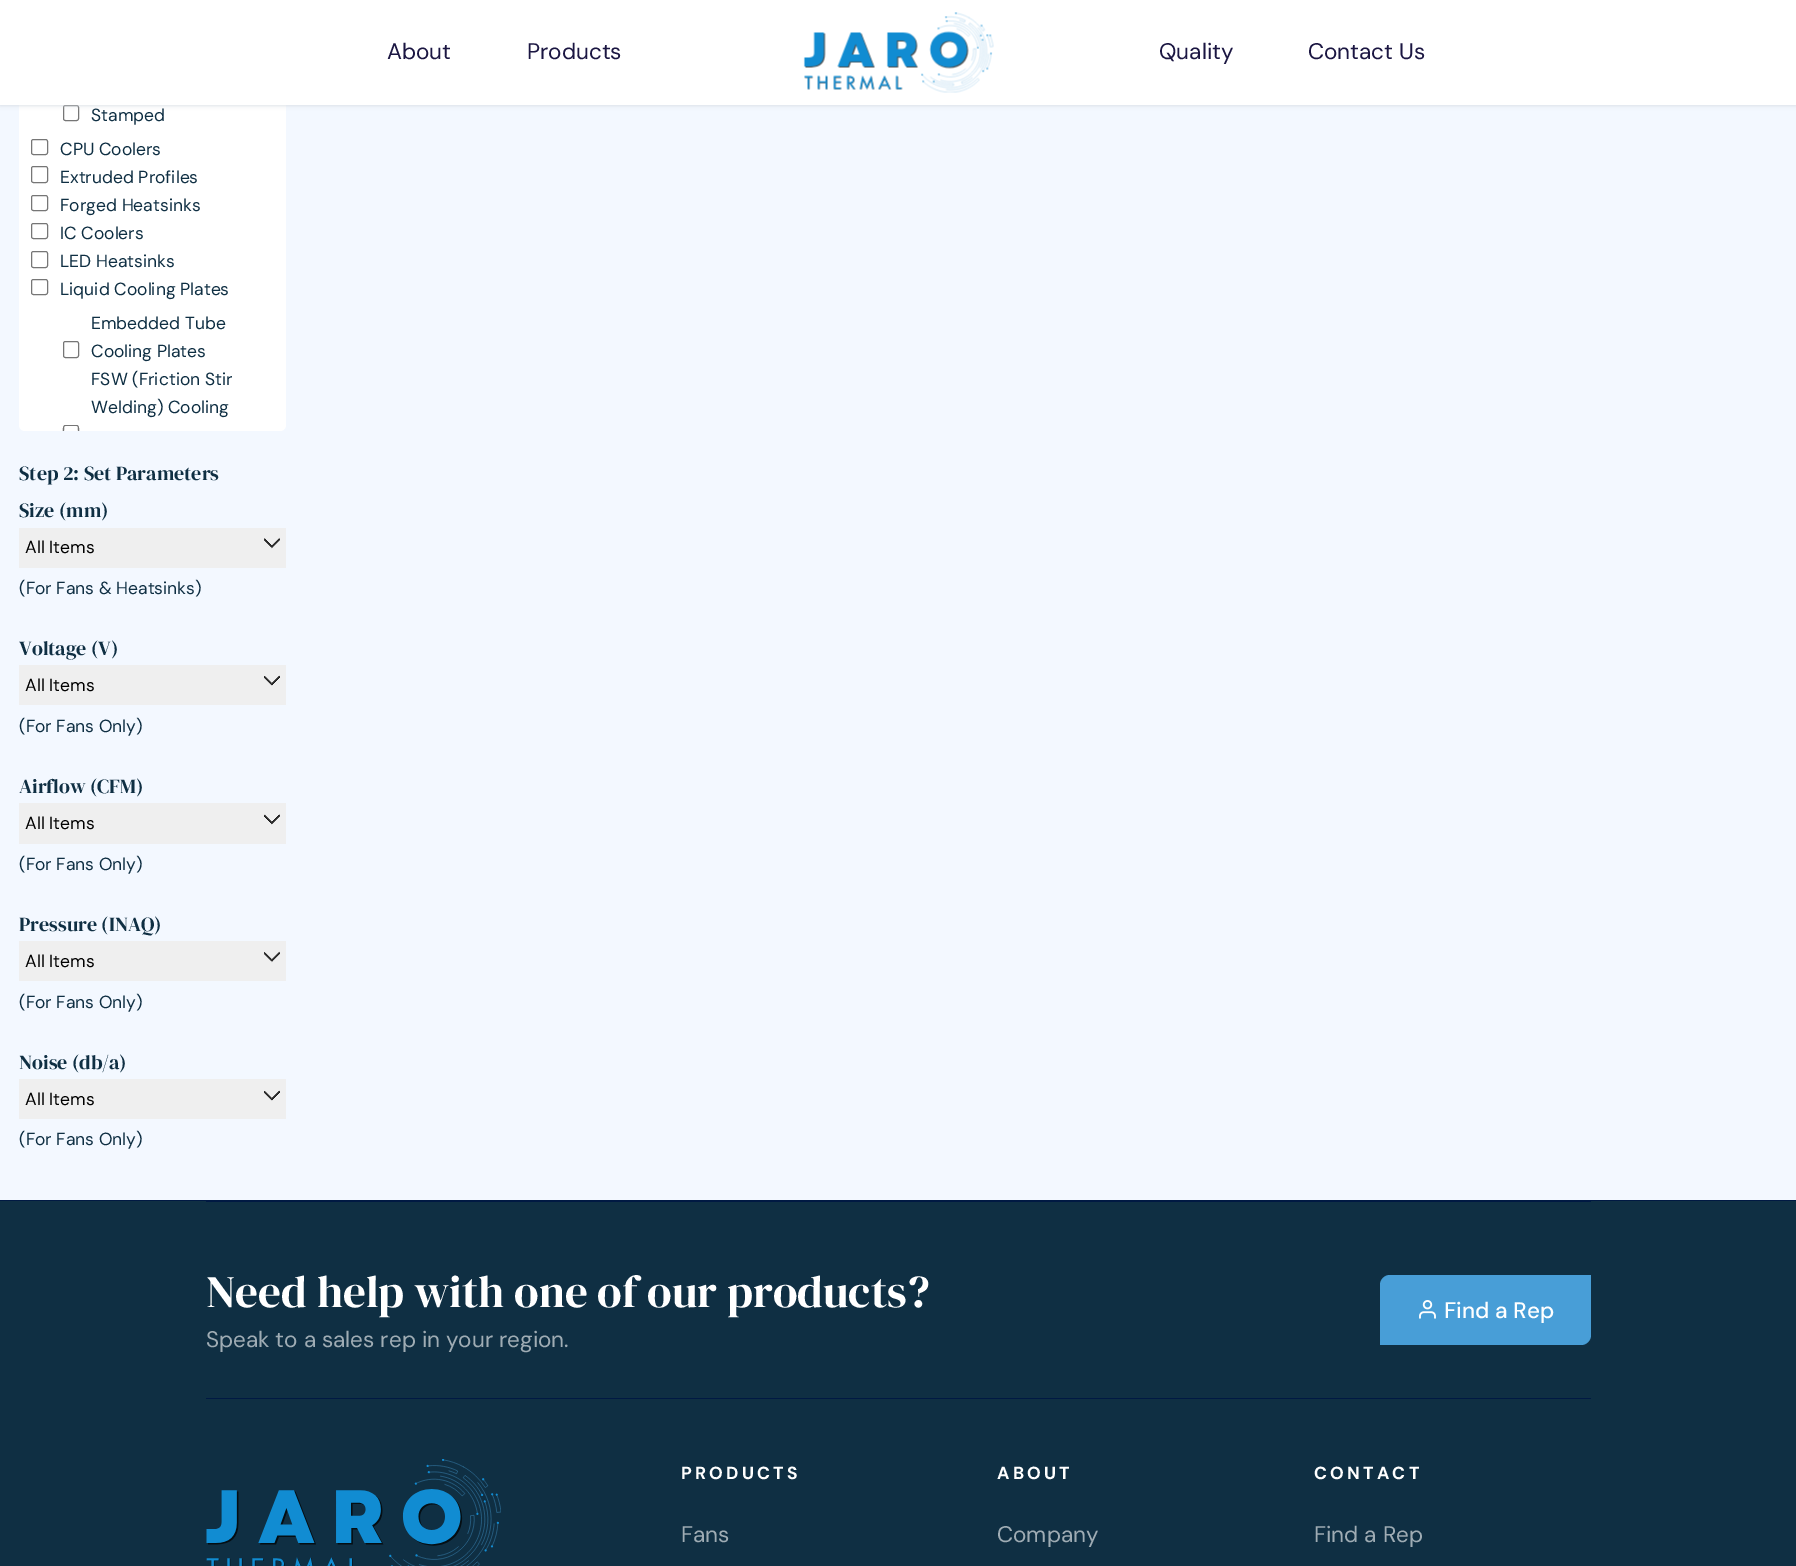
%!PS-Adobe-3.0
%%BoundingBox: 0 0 1796 1566
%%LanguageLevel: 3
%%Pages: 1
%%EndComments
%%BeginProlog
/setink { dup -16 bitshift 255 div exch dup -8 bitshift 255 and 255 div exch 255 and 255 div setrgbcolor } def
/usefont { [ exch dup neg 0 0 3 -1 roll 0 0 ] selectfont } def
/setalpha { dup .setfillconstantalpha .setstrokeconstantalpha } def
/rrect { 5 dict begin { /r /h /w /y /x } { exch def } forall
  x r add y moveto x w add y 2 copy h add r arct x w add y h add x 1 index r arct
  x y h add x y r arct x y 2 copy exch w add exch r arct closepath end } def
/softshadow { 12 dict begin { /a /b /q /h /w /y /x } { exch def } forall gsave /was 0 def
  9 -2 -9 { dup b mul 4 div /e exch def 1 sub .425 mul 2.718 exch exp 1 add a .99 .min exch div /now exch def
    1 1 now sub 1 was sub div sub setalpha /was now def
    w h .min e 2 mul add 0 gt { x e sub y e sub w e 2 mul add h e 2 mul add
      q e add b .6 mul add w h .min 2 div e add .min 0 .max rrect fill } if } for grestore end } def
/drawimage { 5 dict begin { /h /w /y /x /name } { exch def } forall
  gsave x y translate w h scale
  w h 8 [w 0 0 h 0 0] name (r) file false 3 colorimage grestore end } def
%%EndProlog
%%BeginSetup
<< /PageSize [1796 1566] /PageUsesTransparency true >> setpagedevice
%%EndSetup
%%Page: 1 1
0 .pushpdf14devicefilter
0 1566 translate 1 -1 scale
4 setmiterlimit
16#F3F8FF setink
0 0 1796 1566 rectfill
16#FFFFFF setink
19 -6 267 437 6 rrect fill
16#767676 setink
63.5 105.5 15 15 2 rrect stroke
16#D0D5DD setink
0 0 1796 105 0 2.5 1 softshadow
16#FFFFFF setink
0 0 1796 105 rectfill
/DMSans-Regular 22.5 usefont
16#1B1642 setink
387 59 moveto (About) show
527 59 moveto (Products) show
(img1.raw) 803 12 191 81 drawimage
1159 59 moveto (Quality) show
1308 59 moveto (Contact Us) show
/DMSans-Regular 17.5 usefont
16#0F2F43 setink
91 121 moveto (Stamped) show
16#767676 setink
31.5 139.5 16 15 2 rrect stroke
16#0F2F43 setink
60 155 moveto (CPU Coolers) show
16#767676 setink
31.5 166.5 16 16 2 rrect stroke
16#0F2F43 setink
60 183 moveto (Extruded Profiles) show
16#767676 setink
31.5 195.5 16 15 2 rrect stroke
16#0F2F43 setink
60 211 moveto (Forged Heatsinks) show
16#767676 setink
31.5 223.5 16 15 2 rrect stroke
16#0F2F43 setink
60 239 moveto (IC Coolers) show
16#767676 setink
31.5 251.5 16 16 2 rrect stroke
16#0F2F43 setink
60 267 moveto (LED Heatsinks) show
16#767676 setink
31.5 279.5 16 15 2 rrect stroke
16#0F2F43 setink
60 295 moveto (Liquid Cooling Plates) show
16#767676 setink
63.5 341.5 15 16 2 rrect stroke
16#0F2F43 setink
[
    [(Embedded Tube) 91 329]
    [(Cooling Plates) 91 357]
    [(FSW \(Friction Stir) 91 385]
    [(Welding\) Cooling) 91 413]
] { aload pop moveto show } forall
16#767676 setink
65.5 425 moveto 62.5 425 63 429 63 431 curveto 64 431 lineto 64 424.5 64 426 71 426 curveto 78 426 78 424.5 78 431 curveto 79 431 lineto 79 429 79.5 425 76.5 425 curveto closepath fill
/DMSerifDisplay-Regular 20 usefont
16#0F2F43 setink
19 480 moveto (Step 2: Set Parameters) show
19 517 moveto (Size \(mm\)) show
16#EFEFEF setink
19 528 267 40 rectfill
/DMSans-Regular 17.5 usefont
16#000000 setink
25 553 moveto (All Items) show
(img2.raw) 264 537 16 12 drawimage
16#0F2F43 setink
19 594 moveto (\(For Fans & Heatsinks\)) show
/DMSerifDisplay-Regular 20 usefont
19 655 moveto (Voltage \(V\)) show
16#EFEFEF setink
19 665 267 40 rectfill
/DMSans-Regular 17.5 usefont
16#000000 setink
25 691 moveto (All Items) show
(img3.raw) 264 675 16 11 drawimage
16#0F2F43 setink
19 732 moveto (\(For Fans Only\)) show
/DMSerifDisplay-Regular 20 usefont
19 793 moveto (Airflow \(CFM\)) show
16#EFEFEF setink
19 803 267 41 rectfill
/DMSans-Regular 17.5 usefont
16#000000 setink
25 829 moveto (All Items) show
(img4.raw) 264 814 16 11 drawimage
16#0F2F43 setink
19 870 moveto (\(For Fans Only\)) show
/DMSerifDisplay-Regular 20 usefont
19 931 moveto (Pressure \(INAQ\)) show
16#EFEFEF setink
19 941 267 40 rectfill
/DMSans-Regular 17.5 usefont
16#000000 setink
25 967 moveto (All Items) show
(img5.raw) 264 951 16 12 drawimage
16#0F2F43 setink
19 1008 moveto (\(For Fans Only\)) show
/DMSerifDisplay-Regular 20 usefont
19 1069 moveto (Noise \(db/a\)) show
16#EFEFEF setink
19 1079 267 40 rectfill
/DMSans-Regular 17.5 usefont
16#000000 setink
25 1105 moveto (All Items) show
(img3.raw) 264 1090 16 11 drawimage
16#0F2F43 setink
19 1145 moveto (\(For Fans Only\)) show
[
    [0 1201 1796 365 16#0F2F43]
    [0 1200 1796 1 16#001943]
    [206 1201 1385 1 16#001943]
] { aload pop setink rectfill } forall
/DMSerifDisplay-Regular 45 usefont
16#FFFFFF setink
206 1307 moveto (Need help with one of our products?) show
/DMSans-Regular 22.5 usefont
16#9FACB4 setink
206 1347 moveto (Speak to a sales rep in your region.) show
16#489ED7 setink
1390 1275 moveto 1591 1275 lineto 1591 1335 lineto 1591 1340.5 1586.5 1345 1581 1345 curveto 1380 1345 lineto 1380 1285 lineto 1380 1279.5 1384.5 1275 1390 1275 curveto closepath fill
(img6.raw) 1419 1300 17 19 drawimage
/DMSans-Medium 22.5 usefont
16#FFFFFF setink
1444 1318 moveto (Find a Rep) show
16#001943 setink
206 1398 1385 1 rectfill
(img7.raw) 206 1459 295 107 drawimage
/DMSans-Bold 17.5 usefont
16#FFFFFF setink
681 1479 moveto 3.25 0 (PRODUCTS) ashow
/DMSans-Regular 22.5 usefont
16#9FACB4 setink
681 1542 moveto (Fans) show
/DMSans-Bold 17.5 usefont
16#FFFFFF setink
997 1479 moveto 3.25 0 (ABOUT) ashow
/DMSans-Regular 22.5 usefont
16#9FACB4 setink
997 1542 moveto (Company) show
/DMSans-Bold 17.5 usefont
16#FFFFFF setink
1314 1479 moveto 3.25 0 (CONTACT) ashow
/DMSans-Regular 22.5 usefont
16#9FACB4 setink
1314 1542 moveto (Find a Rep) show
.poppdf14devicefilter showpage
%%EOF
